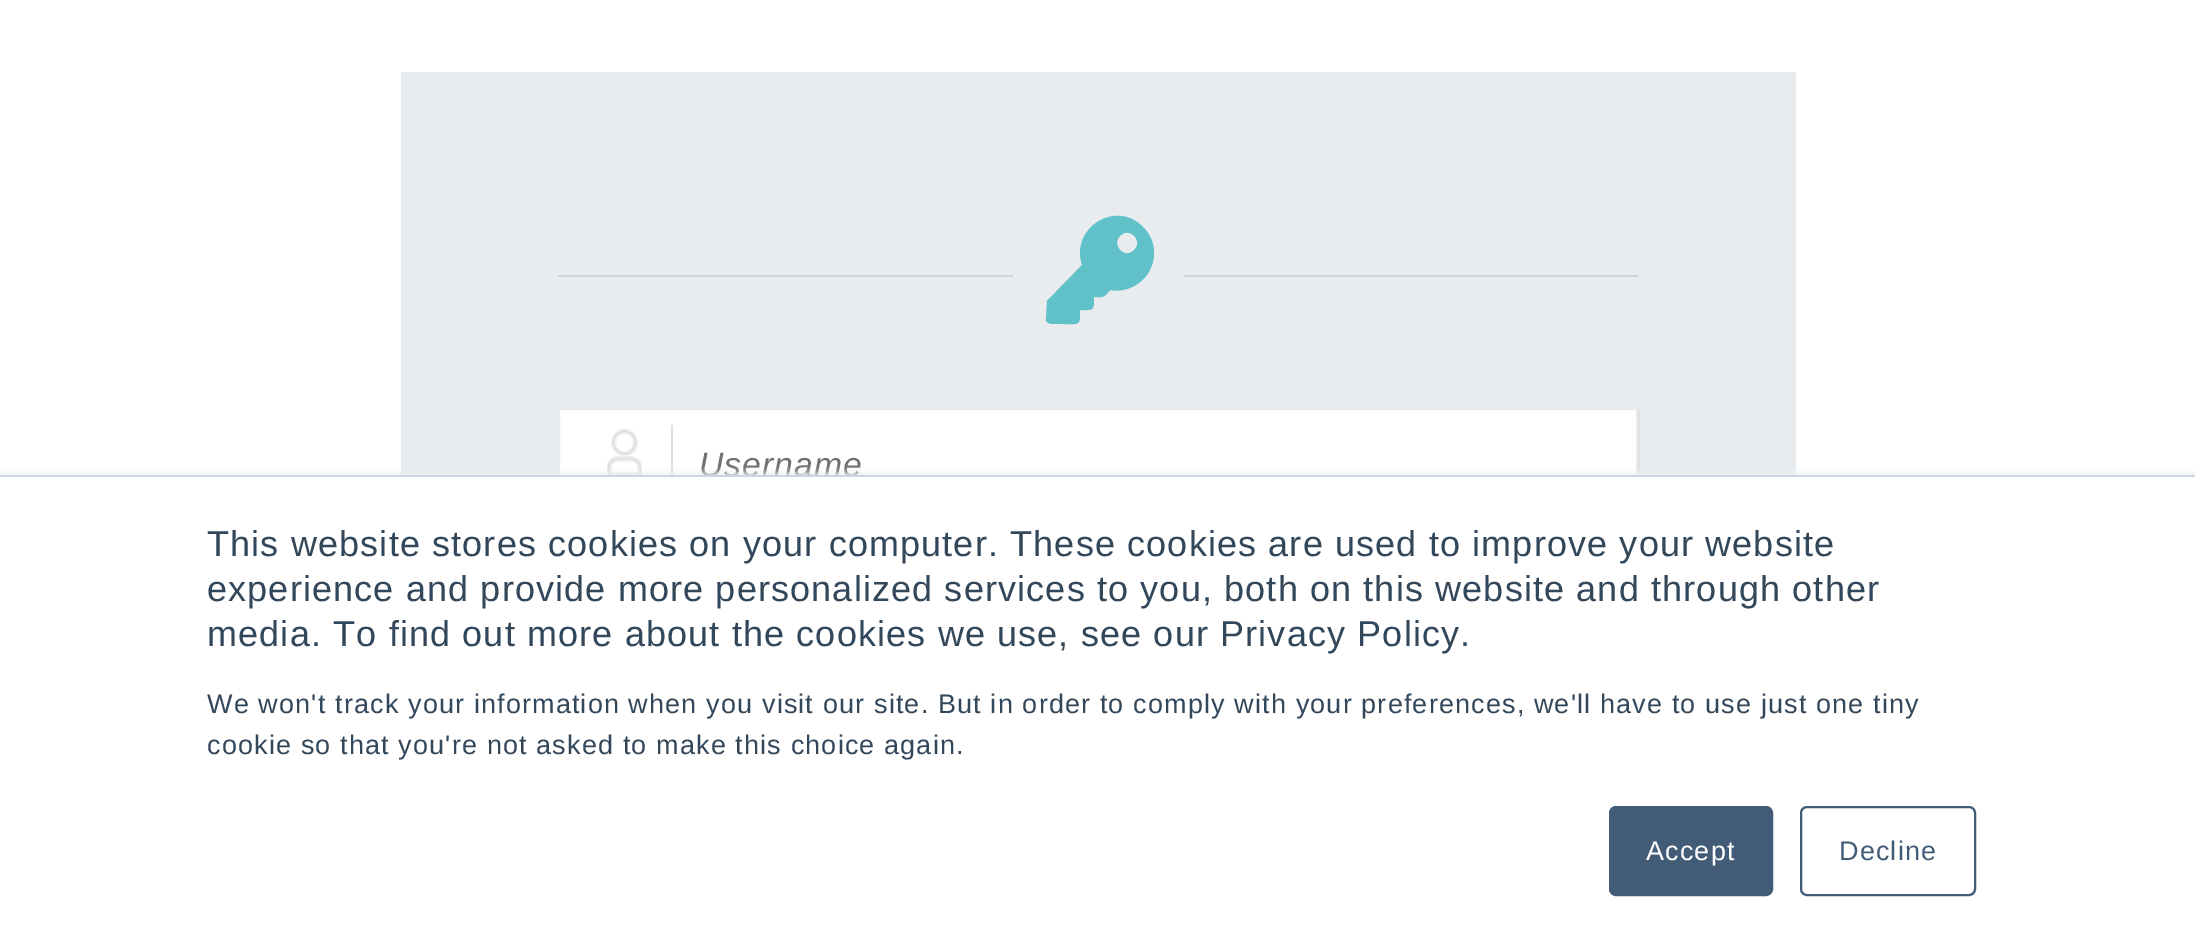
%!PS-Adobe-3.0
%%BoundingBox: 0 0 2195 952
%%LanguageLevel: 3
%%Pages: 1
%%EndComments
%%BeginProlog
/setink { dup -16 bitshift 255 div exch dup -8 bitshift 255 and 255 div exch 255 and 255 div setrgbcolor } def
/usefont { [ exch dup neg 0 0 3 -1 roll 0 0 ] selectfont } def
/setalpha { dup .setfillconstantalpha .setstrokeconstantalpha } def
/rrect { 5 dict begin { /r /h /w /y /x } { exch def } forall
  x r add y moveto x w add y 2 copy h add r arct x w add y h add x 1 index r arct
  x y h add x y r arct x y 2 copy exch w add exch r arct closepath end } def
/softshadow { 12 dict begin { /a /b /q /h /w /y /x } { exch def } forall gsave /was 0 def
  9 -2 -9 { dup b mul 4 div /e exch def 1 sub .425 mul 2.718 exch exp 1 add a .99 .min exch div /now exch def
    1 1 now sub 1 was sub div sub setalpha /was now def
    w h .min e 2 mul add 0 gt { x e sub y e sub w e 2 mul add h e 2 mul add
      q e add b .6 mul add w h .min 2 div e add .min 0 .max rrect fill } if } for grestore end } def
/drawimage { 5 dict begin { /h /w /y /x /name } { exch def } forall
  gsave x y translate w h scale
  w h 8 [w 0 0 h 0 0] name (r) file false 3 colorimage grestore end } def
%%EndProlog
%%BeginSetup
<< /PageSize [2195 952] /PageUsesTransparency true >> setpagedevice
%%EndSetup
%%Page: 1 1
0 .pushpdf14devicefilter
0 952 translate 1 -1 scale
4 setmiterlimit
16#FFFFFF setink
0 0 2195 952 rectfill
16#E9ECEF setink
401 72 1395 403 rectfill
16#D2D4D7 setink
558 275 455 2 rectfill
16#61C1C8 setink
1154 253 moveto 1154 276 1133 294 1110 290 curveto 1103 298 1105 297 1094 297 curveto 1094 311 1094 310 1080 310 curveto 1080 326 1080 324 1063 324 curveto 1055 324 lineto 1052 324 1047 324 1046 320 curveto 1047 301 lineto 1082 265 lineto 1070 228 1116 199 1143 227 curveto 1150 234 1154 243 1154 253 curveto closepath 1120 236 moveto 1111 245 1125 260 1134 250 curveto 1144 241 1129 226 1120 236 curveto closepath fill
16#D2D4D7 setink
1184 275 454 2 rectfill
16#DDDDDD setink
558 410 1082 112 0 1 1 softshadow
16#FFFFFF setink
560 410 1076 65 rectfill
16#EBEBEB setink
2 setlinewidth
559 408 1078 111 rectstroke
(img1.raw) 607 429 35 46 drawimage
16#DBDDE0 setink
671 425 2 50 rectfill
/LiberationSans-Italic 33.75 usefont
16#707070 setink
699 476 moveto 1 0 (Username) ashow
16#EAF0F6 setink
0 473 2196 479 0 3.5 1 softshadow
16#FFFFFF setink
0 477 2195 475 rectfill
16#CBD6E2 setink
0 475 2195 2 rectfill
/LiberationSans-Regular 36 usefont
16#33475B setink
207 556 moveto 1.15 0 (This website stores cookies on your computer. These cookies are used to improve your website) ashow
207 601 moveto 1.15 0 (experience and provide more personalized services to you, both on this website and through other) ashow
207 646 moveto 1.15 0 (media. To find out more about the cookies we use, see our Privacy Policy.) ashow
/LiberationSans-Regular 27 usefont
207 713 moveto 1.15 0 (We won't track your information when you visit our site. But in order to comply with your preferences, we'll have to use just one tiny) ashow
207 754 moveto 1.15 0 (cookie so that you're not asked to make this choice again.) ashow
16#425B76 setink
1610 807 162 88 6 rrect gsave fill grestore
stroke
16#FFFFFF setink
1646 860 moveto 1.15 0 (Accept) ashow
16#425B76 setink
1801 807 174 88 6 rrect stroke
1839 860 moveto 1.15 0 (Decline) ashow
.poppdf14devicefilter showpage
%%EOF
